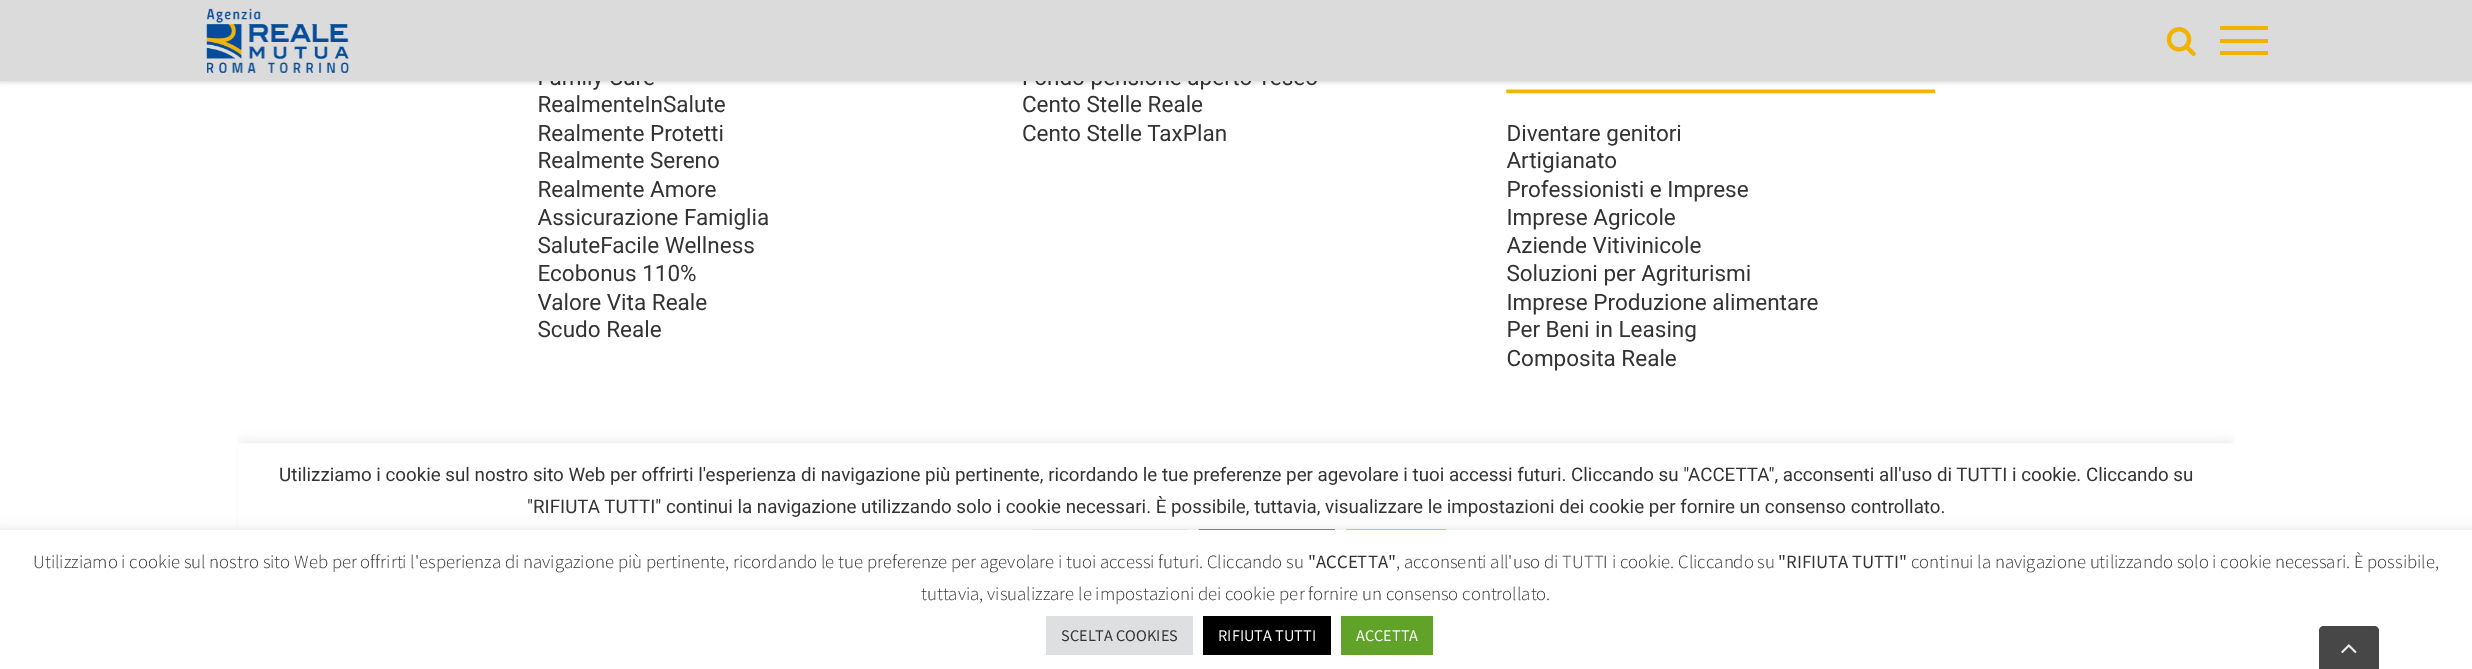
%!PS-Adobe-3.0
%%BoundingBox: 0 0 2472 669
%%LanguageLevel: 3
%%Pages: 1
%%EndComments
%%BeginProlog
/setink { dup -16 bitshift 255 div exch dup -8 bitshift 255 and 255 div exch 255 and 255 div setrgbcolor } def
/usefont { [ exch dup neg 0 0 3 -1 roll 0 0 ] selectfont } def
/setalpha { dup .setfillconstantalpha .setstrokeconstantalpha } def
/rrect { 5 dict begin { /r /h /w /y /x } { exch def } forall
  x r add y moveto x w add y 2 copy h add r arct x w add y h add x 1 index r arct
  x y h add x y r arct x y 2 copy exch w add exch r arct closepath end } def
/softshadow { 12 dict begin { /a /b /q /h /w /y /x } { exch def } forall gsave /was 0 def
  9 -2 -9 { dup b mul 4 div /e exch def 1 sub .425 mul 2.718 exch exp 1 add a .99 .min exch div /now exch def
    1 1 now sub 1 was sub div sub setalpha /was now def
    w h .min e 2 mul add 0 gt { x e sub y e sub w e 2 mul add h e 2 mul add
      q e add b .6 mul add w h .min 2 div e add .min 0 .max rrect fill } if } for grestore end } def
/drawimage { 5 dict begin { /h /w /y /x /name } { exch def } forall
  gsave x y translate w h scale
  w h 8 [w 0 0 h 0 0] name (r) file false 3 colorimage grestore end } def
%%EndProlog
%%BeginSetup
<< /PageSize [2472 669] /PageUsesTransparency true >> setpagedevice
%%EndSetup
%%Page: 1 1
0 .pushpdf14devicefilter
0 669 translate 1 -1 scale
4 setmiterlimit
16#FFFFFF setink
0 0 2472 669 rectfill
(img3.raw) 237 81 1998 449 drawimage
16#000000 setink
0 1 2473 82 0 2 0.12 softshadow
16#DBDBDB setink
0 0 2472 81 rectfill
(img1.raw) 206 8 143 65 drawimage
(img2.raw) 2166 27 30 29 drawimage
[
    [2220 26 48 4 16#F0B400]
    [2220 39 48 4 16#F0B400]
    [2220 51 48 4 16#F0B400]
] { aload pop setink rectfill } forall
16#ACABAB setink
0 529 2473 140 0 6 0.3 softshadow
16#FFFFFF setink
0 530 2472 139 rectfill
/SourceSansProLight-Light 18.75 usefont
16#333333 setink
33 568 moveto (Utilizziamo i cookie sul nostro sito Web per offrirti l'esperienza di navigazione più pertinente, ricordando le tue preferenze per agevolare i tuoi accessi futuri. Cliccando su) show
/SourceSansPro-Regular 18.75 usefont
1308 568 moveto ("ACCETTA") show
/SourceSansProLight-Light 18.75 usefont
1396 568 moveto (, acconsenti all'uso di TUTTI i cookie. Cliccando su) show
/SourceSansPro-Regular 18.75 usefont
1778 568 moveto ("RIFIUTA TUTTI") show
/SourceSansProLight-Light 18.75 usefont
1911 568 moveto (continui la navigazione utilizzando solo i cookie necessari. È possibile,) show
921 600 moveto (tuttavia, visualizzare le impostazioni dei cookie per fornire un consenso controllato.) show
16#DEDFE0 setink
1046 616 147 39 rectfill
/SourceSansPro-Regular 16.25 usefont
16#333333 setink
1061 641 moveto (SCELTA COOKIES) show
16#000000 setink
1203 616 128 39 rectfill
16#FFFFFF setink
1218 641 moveto (RIFIUTA TUTTI) show
16#61A229 setink
1341 616 92 39 rectfill
16#FFFFFF setink
1356 641 moveto (ACCETTA) show
16#474747 setink
2324 626 moveto 2374 626 lineto 2377 626 2379 628 2379 631 curveto 2379 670 lineto 2319 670 lineto 2319 631 lineto 2319 628 2321 626 2324 626 curveto closepath fill
(img4.raw) 2341 644 16 10 drawimage
.poppdf14devicefilter showpage
%%EOF
